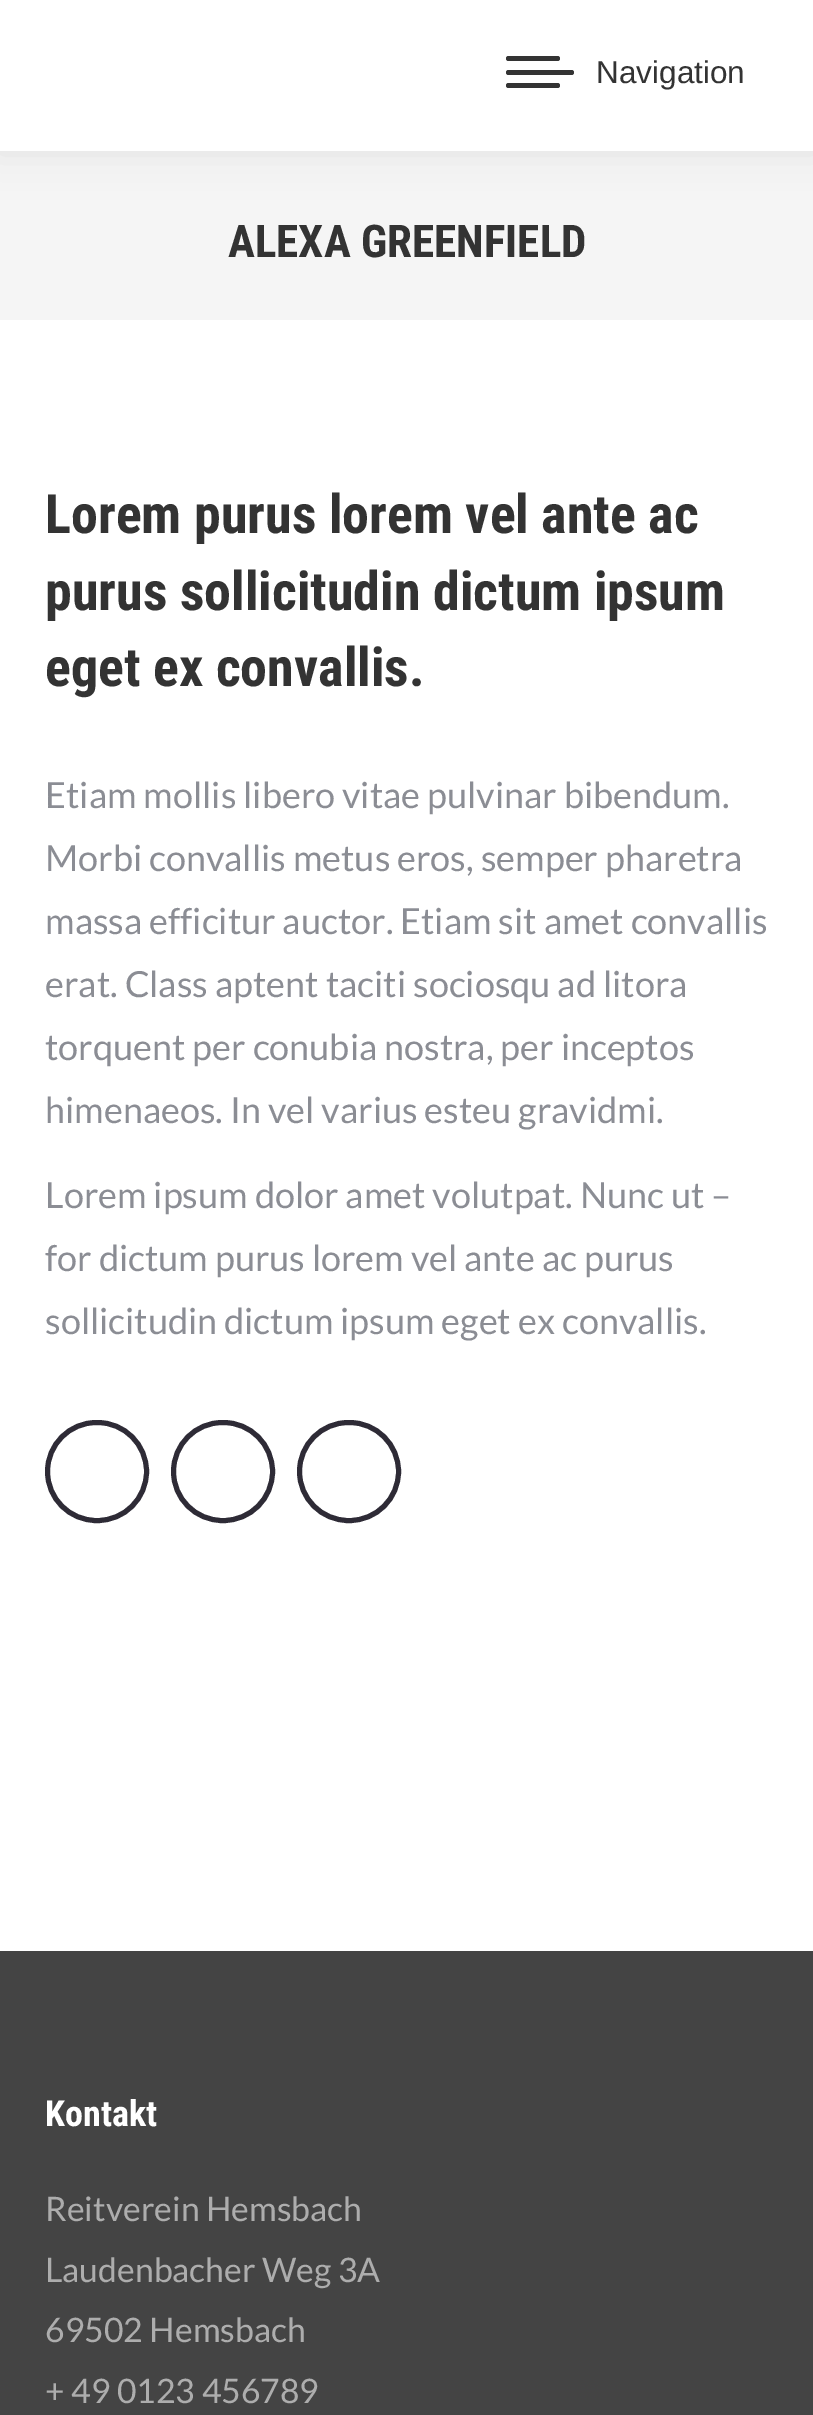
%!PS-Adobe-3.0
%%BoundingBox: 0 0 813 2415
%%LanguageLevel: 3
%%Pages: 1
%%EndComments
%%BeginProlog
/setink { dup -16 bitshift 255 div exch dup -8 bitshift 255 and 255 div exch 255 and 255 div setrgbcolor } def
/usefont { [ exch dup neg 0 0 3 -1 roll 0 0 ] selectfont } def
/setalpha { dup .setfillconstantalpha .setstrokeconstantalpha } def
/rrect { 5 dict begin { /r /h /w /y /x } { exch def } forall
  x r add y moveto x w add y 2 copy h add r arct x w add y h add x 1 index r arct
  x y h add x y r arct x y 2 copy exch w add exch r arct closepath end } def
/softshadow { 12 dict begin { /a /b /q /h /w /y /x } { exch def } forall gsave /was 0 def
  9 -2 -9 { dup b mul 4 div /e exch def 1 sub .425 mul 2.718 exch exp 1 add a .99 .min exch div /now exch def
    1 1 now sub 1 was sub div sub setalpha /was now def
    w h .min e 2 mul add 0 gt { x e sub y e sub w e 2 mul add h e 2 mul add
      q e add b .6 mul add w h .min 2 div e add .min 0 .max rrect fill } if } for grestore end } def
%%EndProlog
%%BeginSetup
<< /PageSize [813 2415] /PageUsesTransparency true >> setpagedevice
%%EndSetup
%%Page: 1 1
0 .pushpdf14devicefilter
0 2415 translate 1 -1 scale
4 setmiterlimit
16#FFFFFF setink
0 0 813 2415 rectfill
16#F5F5F5 setink
0 151 813 169 rectfill
16#000000 setink
-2 -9 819 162 0 17 0.07 softshadow
16#FFFFFF setink
0 0 813 151 rectfill
16#333333 setink
506 56 54 5 2.5 rrect fill
506 70 68 5 2.5 rrect fill
506 83 54 5 2.5 rrect fill
/LiberationSans-Regular 31.5 usefont
596 83 moveto (Navigation) show
/RobotoCondensed-Bold 45 usefont
228 257 moveto (ALEXA GREENFIELD) show
/RobotoCondensed-Bold 54 usefont
[
    [(Lorem purus lorem vel ante ac) 45 533]
    [(purus sollicitudin dictum ipsum) 45 610]
    [(eget ex convallis.) 45 686]
] { aload pop moveto show } forall
/Lato-Regular 36 usefont
16#8B8D94 setink
[
    [(Etiam mollis libero vitae pulvinar bibendum.) 45 808]
    [(Morbi convallis metus eros, semper pharetra) 45 871]
    [(massa efficitur auctor. Etiam sit amet convallis) 45 934]
    [(erat. Class aptent taciti sociosqu ad litora) 45 997]
    [(torquent per conubia nostra, per inceptos) 45 1060]
    [(himenaeos. In vel varius esteu gravidmi.) 45 1123]
    [(Lorem ipsum dolor amet volutpat. Nunc ut –) 45 1208]
    [(for dictum purus lorem vel ante ac purus) 45 1271]
    [(sollicitudin dictum ipsum eget ex convallis.) 45 1334]
] { aload pop moveto show } forall
16#2E2B36 setink
5 setlinewidth
47.5 1422.5 99 98 49 rrect stroke
173.5 1422.5 99 98 49 rrect stroke
299.5 1422.5 99 98 49 rrect stroke
16#444444 setink
0 1951 813 464 rectfill
/RobotoCondensed-Bold 36 usefont
16#FFFFFF setink
45 2126 moveto (Kontakt) show
/Lato-Regular 33.75 usefont
16#ADADAD setink
[
    [(Reitverein Hemsbach) 45 2221]
    [(Laudenbacher Weg 3A) 45 2282]
    [(69502 Hemsbach) 45 2342]
    [(+ 49 0123 456789) 45 2403]
] { aload pop moveto show } forall
.poppdf14devicefilter showpage
%%EOF
